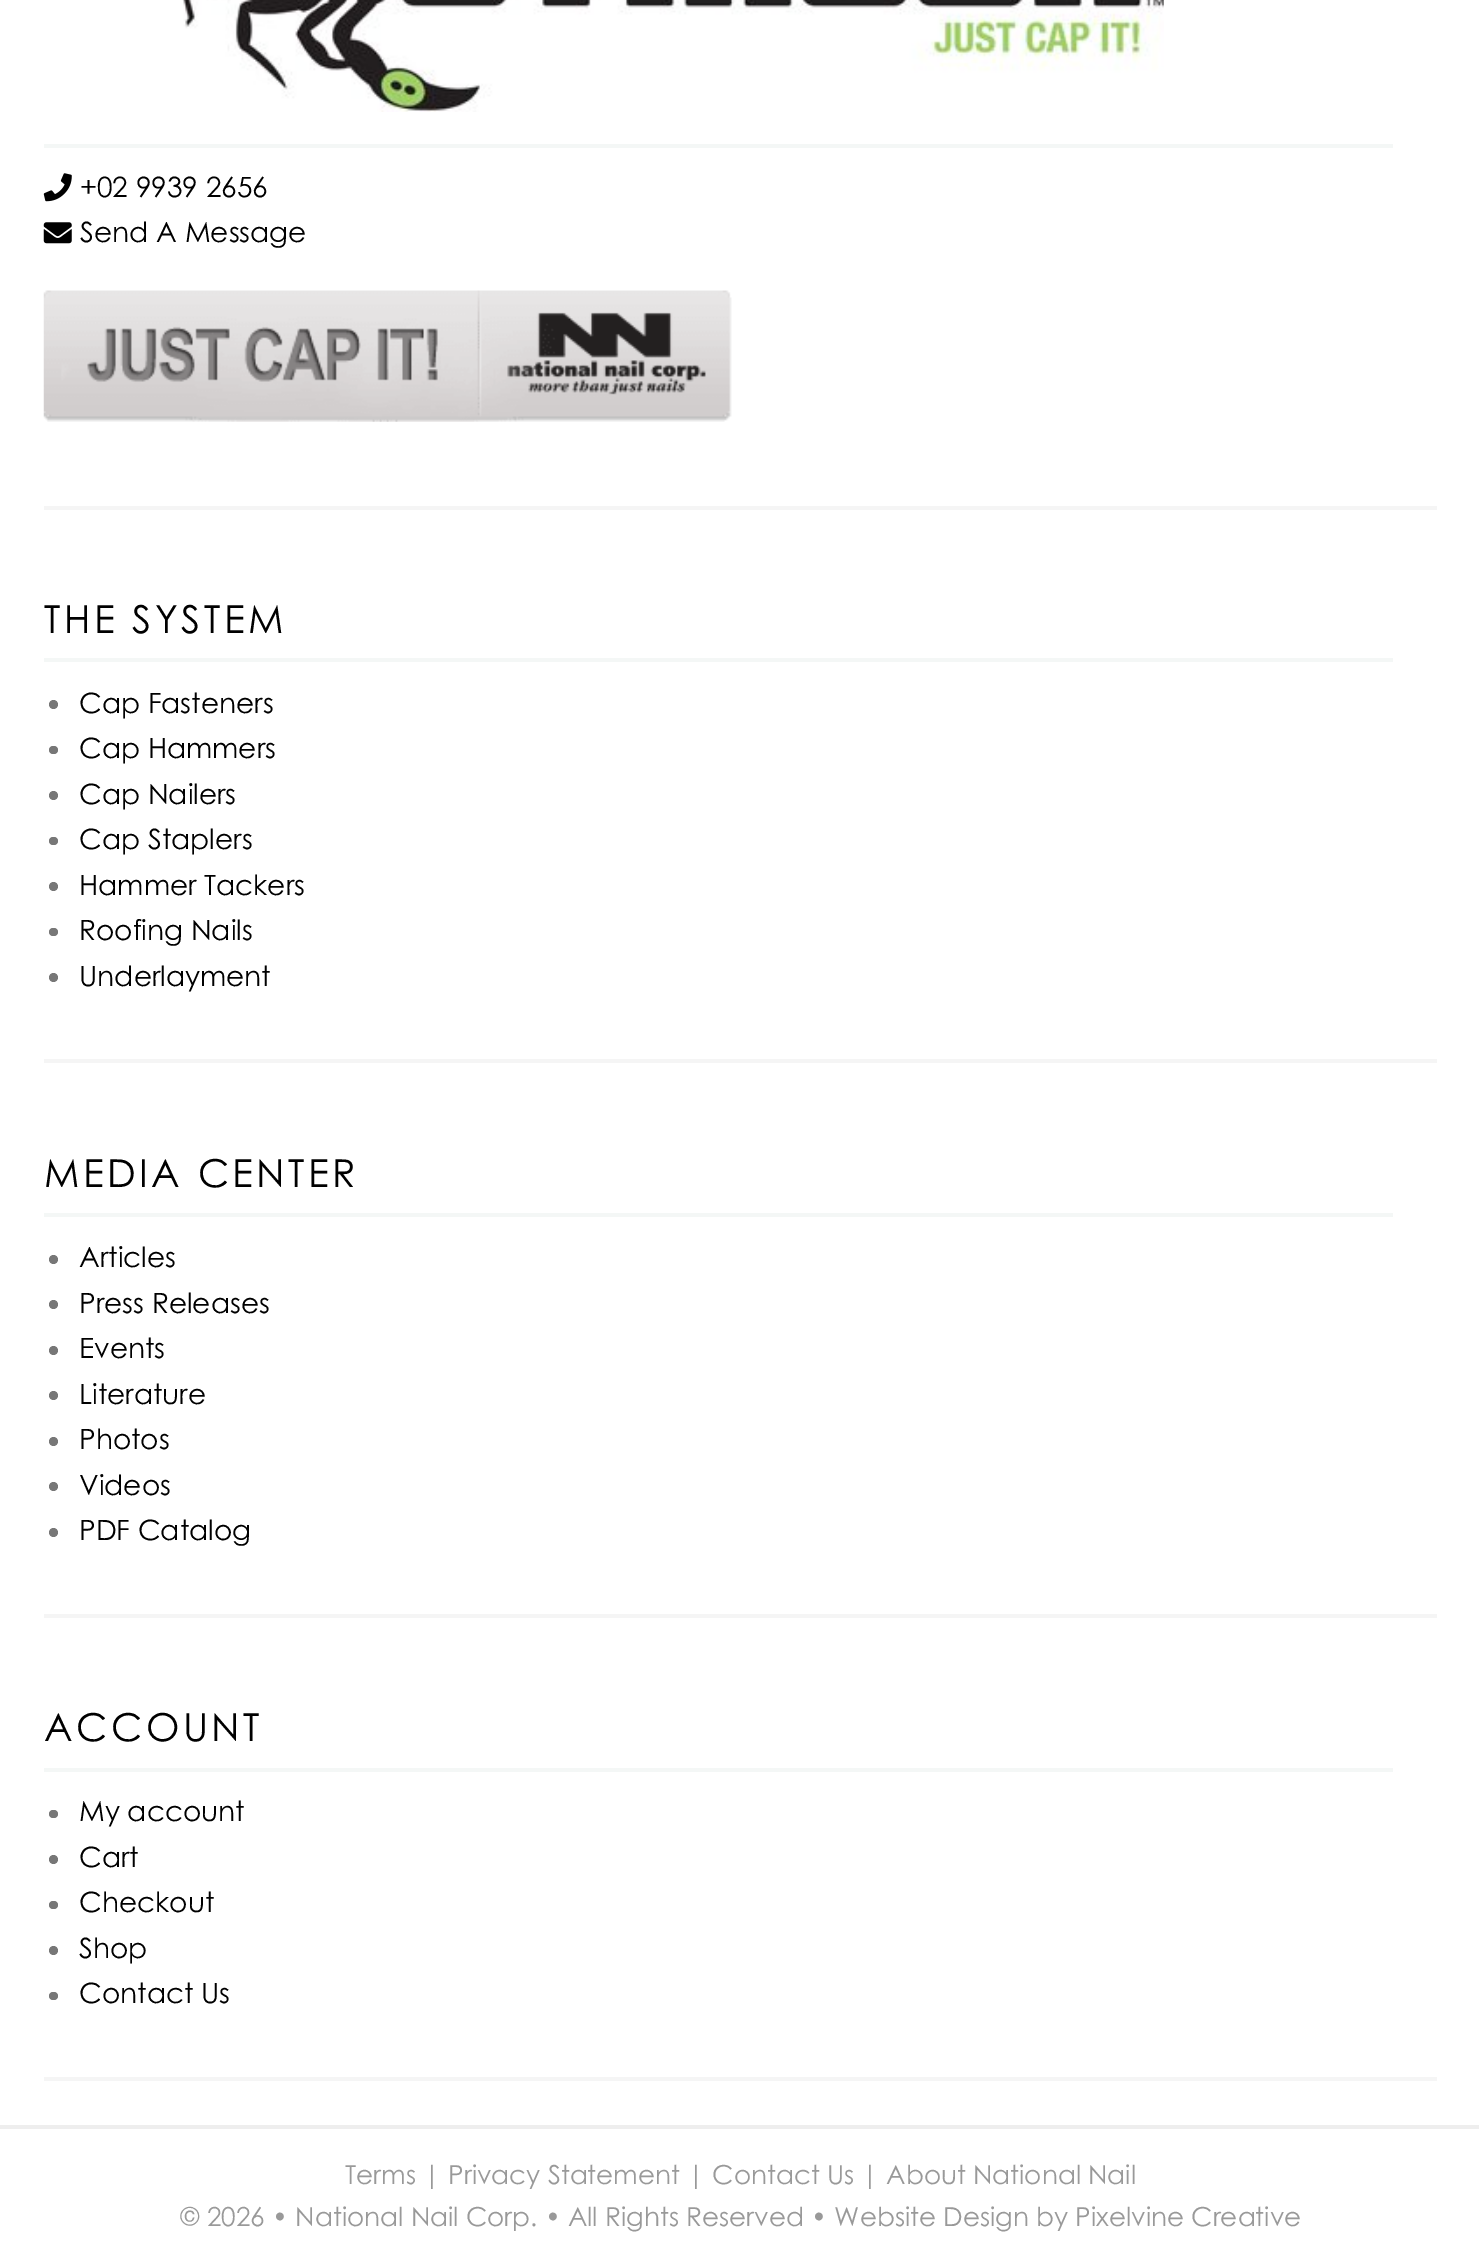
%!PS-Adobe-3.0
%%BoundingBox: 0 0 1479 2266
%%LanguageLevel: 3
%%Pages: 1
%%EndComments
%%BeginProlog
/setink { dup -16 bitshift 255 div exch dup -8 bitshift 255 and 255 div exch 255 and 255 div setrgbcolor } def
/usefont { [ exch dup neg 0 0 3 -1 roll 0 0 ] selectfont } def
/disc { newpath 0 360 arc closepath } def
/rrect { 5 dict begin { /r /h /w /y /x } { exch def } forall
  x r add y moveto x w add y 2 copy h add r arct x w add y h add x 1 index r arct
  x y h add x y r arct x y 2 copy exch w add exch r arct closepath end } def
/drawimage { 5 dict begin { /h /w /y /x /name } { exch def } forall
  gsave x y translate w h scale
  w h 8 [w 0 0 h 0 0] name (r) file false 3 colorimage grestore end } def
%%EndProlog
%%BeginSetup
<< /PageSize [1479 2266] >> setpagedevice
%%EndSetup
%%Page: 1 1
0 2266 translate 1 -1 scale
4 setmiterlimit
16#FFFFFF setink
0 0 1479 2266 rectfill
16#F5F5F5 setink
44 506 1393 4 rectfill
16#F4F7F6 setink
44 144 1349 4 rectfill
(img1.raw) 182 0 982 112 drawimage
(img2.raw) 43 173 29 29 drawimage
/CenturyGothic-Regular 28 usefont
16#000000 setink
80 197 moveto (+02 9939 2656) show
(img3.raw) 43 222 29 22 drawimage
80 242 moveto (Send A Message) show
(img4.raw) 43 290 689 132 drawimage
16#F5F5F5 setink
44 1059 1393 4 rectfill
16#F4F7F6 setink
44 658 1349 4 rectfill
/CenturyGothic-Regular 38.5 usefont
16#000000 setink
44 633 moveto 3.5 0 (THE SYSTEM) ashow
16#777777 setink
53.5 704.5 4.5 disc fill
/CenturyGothic-Regular 28 usefont
16#000000 setink
79 713 moveto (Cap Fasteners) show
16#777777 setink
49 746 9 8 4 rrect fill
16#000000 setink
79 758 moveto (Cap Hammers) show
16#777777 setink
53.5 795.5 4.5 disc fill
16#000000 setink
79 804 moveto (Cap Nailers) show
16#777777 setink
49 837 9 8 4 rrect fill
16#000000 setink
79 849 moveto (Cap Staplers) show
16#777777 setink
53.5 886.5 4.5 disc fill
16#000000 setink
79 895 moveto (Hammer Tackers) show
16#777777 setink
49 928 9 8 4 rrect fill
16#000000 setink
79 940 moveto (Roofing Nails) show
16#777777 setink
53.5 977.5 4.5 disc fill
16#000000 setink
79 986 moveto (Underlayment) show
16#F5F5F5 setink
44 1614 1393 4 rectfill
16#F4F7F6 setink
44 1213 1349 4 rectfill
/CenturyGothic-Regular 38.5 usefont
16#000000 setink
44 1187 moveto 3.5 0 (MEDIA CENTER) ashow
16#777777 setink
53.5 1259.5 4.5 disc fill
/CenturyGothic-Regular 28 usefont
16#000000 setink
79 1267 moveto (Articles) show
16#777777 setink
53.5 1304.5 4.5 disc fill
16#000000 setink
79 1313 moveto (Press Releases) show
16#777777 setink
53.5 1350.5 4.5 disc fill
16#000000 setink
79 1358 moveto (Events) show
16#777777 setink
53.5 1395.5 4.5 disc fill
16#000000 setink
79 1404 moveto (Literature) show
16#777777 setink
53.5 1441.5 4.5 disc fill
16#000000 setink
79 1449 moveto (Photos) show
16#777777 setink
53.5 1486.5 4.5 disc fill
16#000000 setink
79 1495 moveto (Videos) show
16#777777 setink
53.5 1532.5 4.5 disc fill
16#000000 setink
79 1540 moveto (PDF Catalog) show
16#F5F5F5 setink
44 2077 1393 4 rectfill
16#F4F7F6 setink
44 1768 1349 4 rectfill
/CenturyGothic-Regular 38.5 usefont
16#000000 setink
44 1741 moveto 3.5 0 (ACCOUNT) ashow
16#777777 setink
49 1810 9 8 4 rrect fill
/CenturyGothic-Regular 28 usefont
16#000000 setink
79 1821 moveto (My account) show
16#777777 setink
53.5 1859.5 4.5 disc fill
16#000000 setink
79 1867 moveto (Cart) show
16#777777 setink
49 1901 9 8 4 rrect fill
16#000000 setink
79 1912 moveto (Checkout) show
16#777777 setink
53.5 1950.5 4.5 disc fill
16#000000 setink
79 1958 moveto (Shop) show
16#777777 setink
49 1992 9 8 4 rrect fill
16#000000 setink
79 2003 moveto (Contact Us) show
16#EEEEEE setink
0 2125 1479 4 rectfill
/CenturyGothic-Regular 26.25 usefont
16#999999 setink
345 2184 moveto (Terms | Privacy Statement | Contact Us | About National Nail) show
180 2226 moveto (© 2026 • National Nail Corp. • All Rights Reserved • Website Design by Pixelvine Creative) show
showpage
%%EOF
